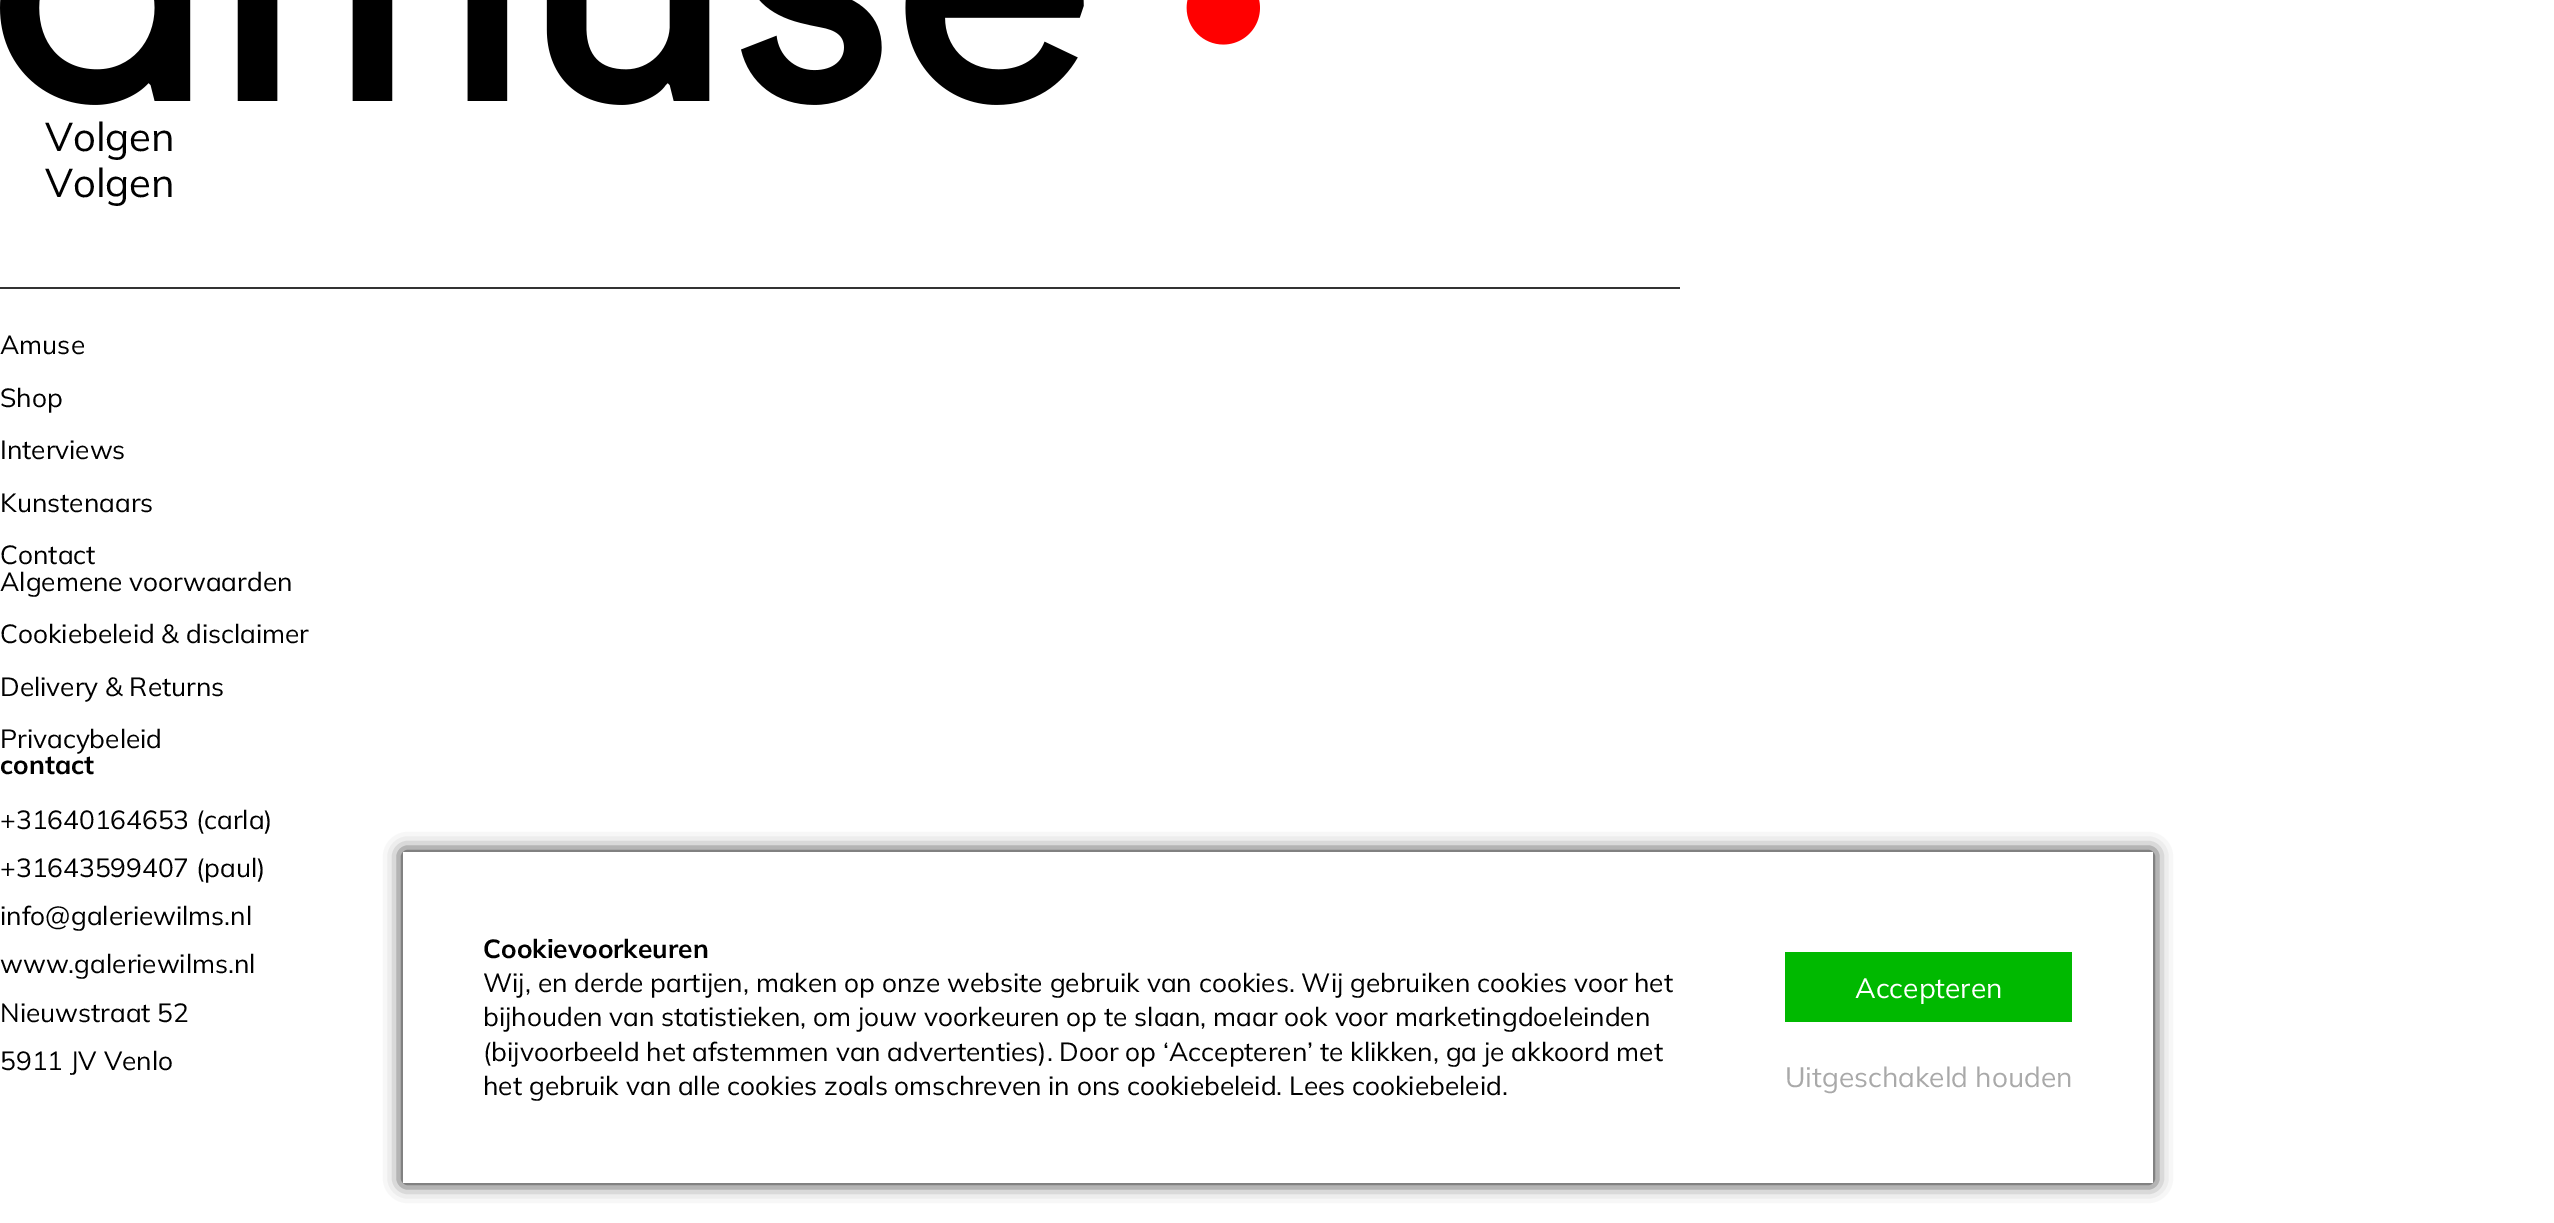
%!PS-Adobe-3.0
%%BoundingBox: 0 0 2554 1223
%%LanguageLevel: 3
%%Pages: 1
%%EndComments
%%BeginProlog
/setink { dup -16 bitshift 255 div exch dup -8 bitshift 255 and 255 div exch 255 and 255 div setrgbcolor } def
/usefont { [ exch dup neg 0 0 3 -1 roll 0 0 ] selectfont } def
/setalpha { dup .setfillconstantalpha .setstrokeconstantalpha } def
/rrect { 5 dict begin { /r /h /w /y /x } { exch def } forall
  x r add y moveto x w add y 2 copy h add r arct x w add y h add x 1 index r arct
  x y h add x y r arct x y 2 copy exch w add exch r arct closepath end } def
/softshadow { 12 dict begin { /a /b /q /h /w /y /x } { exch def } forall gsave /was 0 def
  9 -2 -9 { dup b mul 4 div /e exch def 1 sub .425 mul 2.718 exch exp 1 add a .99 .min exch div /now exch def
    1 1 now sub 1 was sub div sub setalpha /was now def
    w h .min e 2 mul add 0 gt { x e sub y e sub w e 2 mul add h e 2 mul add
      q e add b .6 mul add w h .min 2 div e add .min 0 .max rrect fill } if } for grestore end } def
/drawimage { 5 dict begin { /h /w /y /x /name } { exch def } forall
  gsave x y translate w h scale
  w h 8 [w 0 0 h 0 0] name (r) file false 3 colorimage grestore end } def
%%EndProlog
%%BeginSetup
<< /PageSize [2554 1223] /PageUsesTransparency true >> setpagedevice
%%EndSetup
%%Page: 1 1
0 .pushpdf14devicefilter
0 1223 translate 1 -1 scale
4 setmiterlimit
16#FFFFFF setink
0 0 2554 1223 rectfill
(img1.raw) 0 0 1260 105 drawimage
/Mulish-Regular 40 usefont
16#000000 setink
45 151 moveto (Volgen) show
45 197 moveto (Volgen) show
16#333333 setink
0 287 1680 2 rectfill
/Mulish-Regular 26.25 usefont
16#000000 setink
[
    [(Amuse) 0 354]
    [(Shop) 0 407]
    [(Interviews) 0 459]
    [(Kunstenaars) 0 512]
    [(Contact) 0 564]
    [(Algemene voorwaarden) 0 591]
    [(Cookiebeleid & disclaimer) 0 643]
    [(Delivery & Returns) 0 696]
    [(Privacybeleid) 0 748]
] { aload pop moveto show } forall
/Mulish-Bold 26.25 usefont
0 774 moveto (contact) show
/Mulish-Regular 26.25 usefont
[
    [(+31640164653 \(carla\)) 0 829]
    [(+31643599407 \(paul\)) 0 877]
    [(info@galeriewilms.nl) 0 925]
    [(www.galeriewilms.nl) 0 973]
    [(Nieuwstraat 52) 0 1022]
    [(5911 JV Venlo) 0 1070]
] { aload pop moveto show } forall
403 852 1750 331 0 9 1 softshadow
16#FFFFFF setink
403 852 1750 331 rectfill
/Mulish-Bold 26.25 usefont
16#000000 setink
483 958 moveto (Cookievoorkeuren) show
/Mulish-Regular 26.25 usefont
[
    [(Wij, en derde partijen, maken op onze website gebruik van cookies. Wij gebruiken cookies voor het) 483 992]
    [(bijhouden van statistieken, om jouw voorkeuren op te slaan, maar ook voor marketingdoeleinden) 483 1026]
    [(\(bijvoorbeeld het afstemmen van advertenties\). Door op ‘Accepteren’ te klikken, ga je akkoord met) 483 1061]
    [(het gebruik van alle cookies zoals omschreven in ons cookiebeleid. Lees cookiebeleid.) 483 1095]
] { aload pop moveto show } forall
16#00B900 setink
1785 952 287 70 rectfill
/Mulish-Regular 28 usefont
16#FFFFFF setink
1855 998 moveto (Accepteren) show
16#A9A9A9 setink
1785 1087 moveto (Uitgeschakeld houden) show
.poppdf14devicefilter showpage
%%EOF
